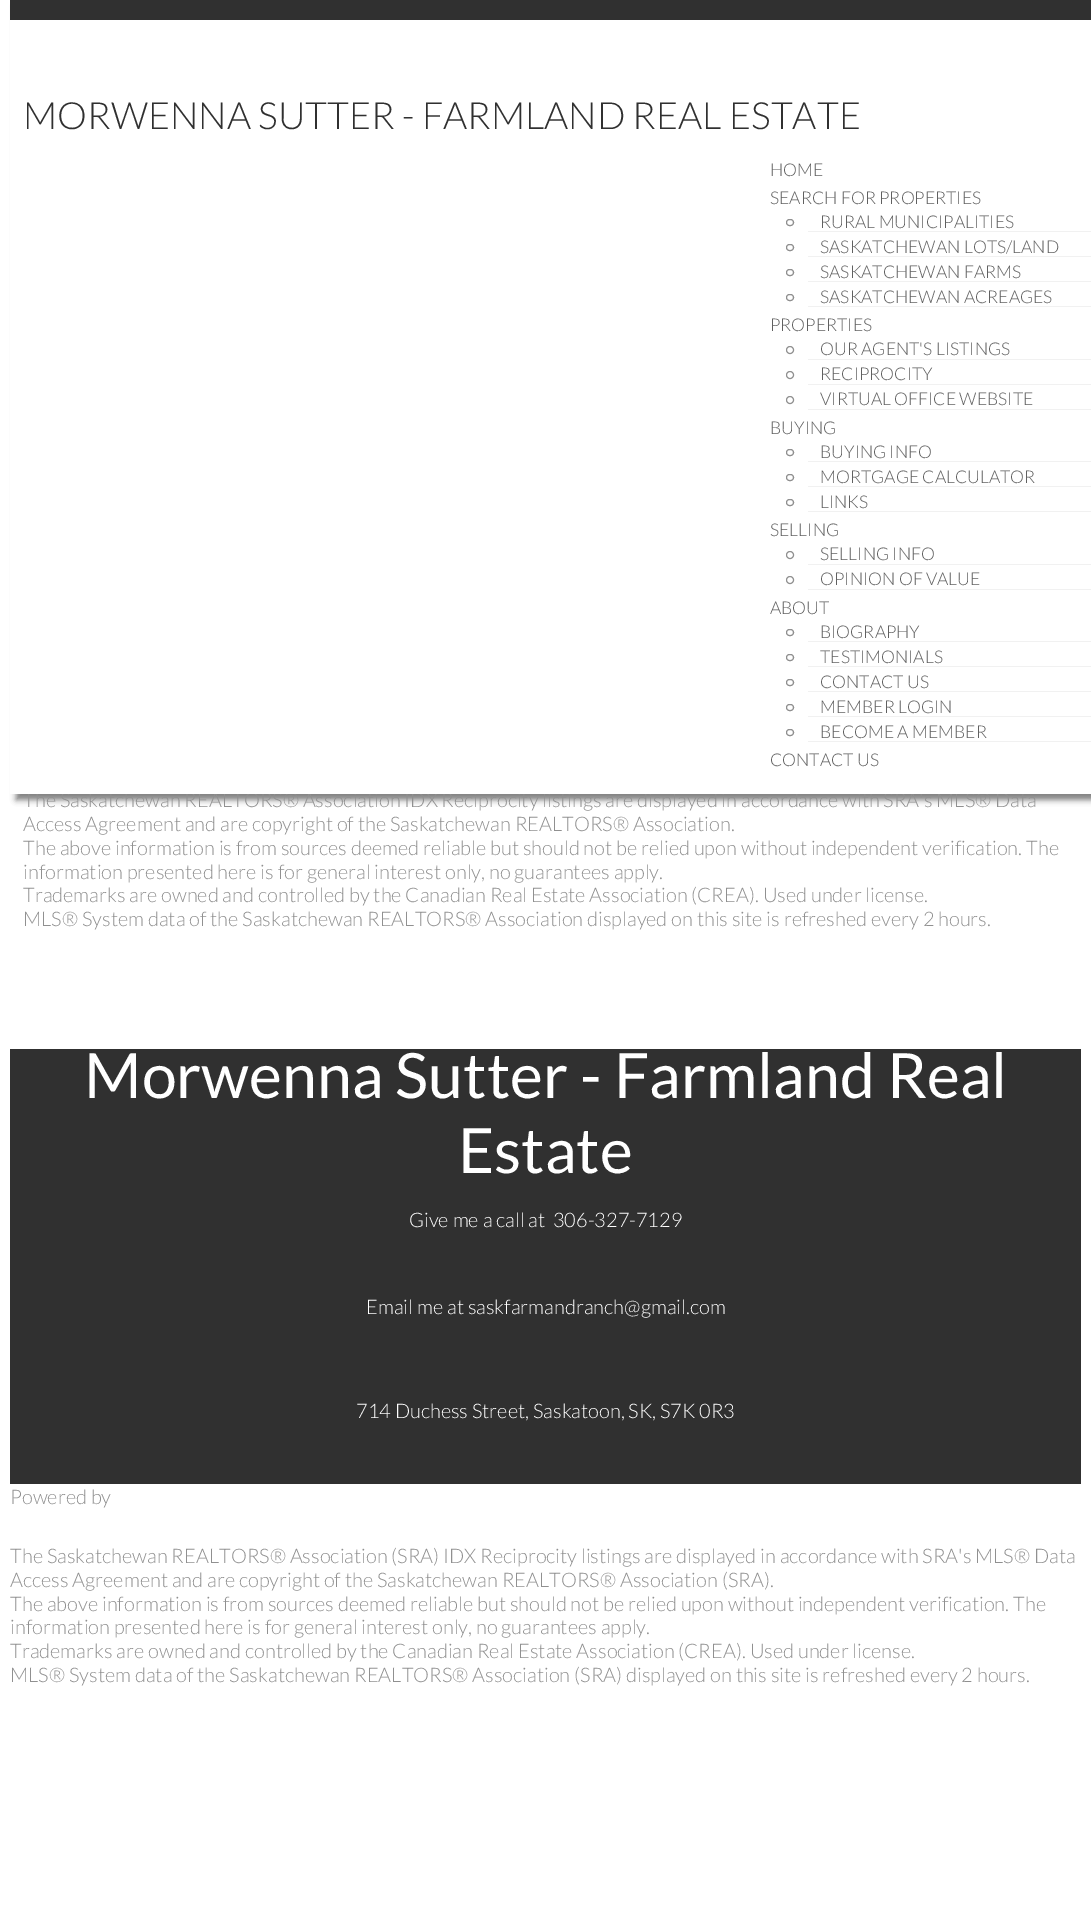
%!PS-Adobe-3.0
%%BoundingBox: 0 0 1091 1931
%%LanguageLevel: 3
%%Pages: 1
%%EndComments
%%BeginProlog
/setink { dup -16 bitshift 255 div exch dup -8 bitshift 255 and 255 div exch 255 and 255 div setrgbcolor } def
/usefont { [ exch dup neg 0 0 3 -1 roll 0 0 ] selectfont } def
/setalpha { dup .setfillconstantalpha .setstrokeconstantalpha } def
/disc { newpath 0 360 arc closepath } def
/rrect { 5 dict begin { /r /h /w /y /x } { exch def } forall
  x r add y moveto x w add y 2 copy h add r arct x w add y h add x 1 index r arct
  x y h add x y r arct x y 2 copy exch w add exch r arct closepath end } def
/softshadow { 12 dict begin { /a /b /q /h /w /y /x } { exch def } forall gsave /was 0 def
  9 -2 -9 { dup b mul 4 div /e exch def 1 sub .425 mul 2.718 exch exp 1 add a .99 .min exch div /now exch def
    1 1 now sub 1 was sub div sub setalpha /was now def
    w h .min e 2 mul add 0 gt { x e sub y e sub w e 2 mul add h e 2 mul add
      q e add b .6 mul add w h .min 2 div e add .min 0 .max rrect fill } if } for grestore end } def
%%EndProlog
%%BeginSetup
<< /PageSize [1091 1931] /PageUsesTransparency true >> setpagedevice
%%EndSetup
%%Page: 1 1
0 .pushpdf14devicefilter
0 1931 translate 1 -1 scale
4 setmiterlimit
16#FFFFFF setink
0 0 1091 1931 rectfill
16#000000 setink
16 6 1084 794 0 3 0.5 softshadow
/Lato-Light 20 usefont
16#909090 setink
23 807 moveto (The Saskatchewan REALTORS® Association IDX Reciprocity listings are displayed in accordance with SRA's MLS® Data) show
16#FFFFFF setink
10 20 1081 774 rectfill
16#303030 setink
10 0 1081 20 rectfill
/Lato-Light 37.5 usefont
23 129 moveto (MORWENNA SUTTER - FARMLAND REAL ESTATE) show
/Lato-Light 17.5 usefont
16#606060 setink
770 176 moveto (HOME) show
770 204 moveto (SEARCH FOR PROPERTIES) show
16#F1F1F1 setink
808 231 283 1 rectfill
16#909090 setink
786.5 219.5 7 6 3 rrect stroke
16#606060 setink
820 228 moveto (RURAL MUNICIPALITIES) show
16#F1F1F1 setink
808 256 283 1 rectfill
16#909090 setink
786.5 244.5 7 6 3 rrect stroke
16#606060 setink
820 253 moveto (SASKATCHEWAN LOTS/LAND) show
16#F1F1F1 setink
808 281 283 1 rectfill
16#909090 setink
786.5 269.5 7 6 3 rrect stroke
16#606060 setink
820 278 moveto (SASKATCHEWAN FARMS) show
16#F1F1F1 setink
808 306 283 1 rectfill
16#909090 setink
786.5 294.5 7 6 3 rrect stroke
16#606060 setink
820 303 moveto (SASKATCHEWAN ACREAGES) show
770 331 moveto (PROPERTIES) show
16#F1F1F1 setink
808 359 283 1 rectfill
16#909090 setink
790 350 3.5 disc stroke
16#606060 setink
820 355 moveto (OUR AGENT'S LISTINGS) show
16#F1F1F1 setink
808 384 283 1 rectfill
16#909090 setink
790 375 3.5 disc stroke
16#606060 setink
820 380 moveto (RECIPROCITY) show
16#F1F1F1 setink
808 409 283 1 rectfill
16#909090 setink
790 400 3.5 disc stroke
16#606060 setink
820 405 moveto (VIRTUAL OFFICE WEBSITE) show
770 434 moveto (BUYING) show
16#F1F1F1 setink
808 461 283 1 rectfill
16#909090 setink
786.5 449.5 7 6 3 rrect stroke
16#606060 setink
820 458 moveto (BUYING INFO) show
16#F1F1F1 setink
808 486 283 1 rectfill
16#909090 setink
786.5 474.5 7 6 3 rrect stroke
16#606060 setink
820 483 moveto (MORTGAGE CALCULATOR) show
16#F1F1F1 setink
808 511 283 1 rectfill
16#909090 setink
786.5 499.5 7 6 3 rrect stroke
16#606060 setink
820 508 moveto (LINKS) show
770 536 moveto (SELLING) show
16#F1F1F1 setink
808 564 283 1 rectfill
16#909090 setink
790 555 3.5 disc stroke
16#606060 setink
820 560 moveto (SELLING INFO) show
16#F1F1F1 setink
808 589 283 1 rectfill
16#909090 setink
790 580 3.5 disc stroke
16#606060 setink
820 585 moveto (OPINION OF VALUE) show
770 614 moveto (ABOUT) show
16#F1F1F1 setink
808 641 283 1 rectfill
16#909090 setink
786.5 629.5 7 6 3 rrect stroke
16#606060 setink
820 638 moveto (BIOGRAPHY) show
16#F1F1F1 setink
808 666 283 1 rectfill
16#909090 setink
786.5 654.5 7 6 3 rrect stroke
16#606060 setink
820 663 moveto (TESTIMONIALS) show
16#F1F1F1 setink
808 691 283 1 rectfill
16#909090 setink
786.5 679.5 7 6 3 rrect stroke
16#606060 setink
820 688 moveto (CONTACT US) show
16#F1F1F1 setink
808 716 283 1 rectfill
16#909090 setink
786.5 704.5 7 6 3 rrect stroke
16#606060 setink
820 713 moveto (MEMBER LOGIN) show
16#F1F1F1 setink
808 741 283 1 rectfill
16#909090 setink
786.5 729.5 7 6 3 rrect stroke
16#606060 setink
820 738 moveto (BECOME A MEMBER) show
770 766 moveto (CONTACT US) show
/Lato-Light 20 usefont
16#909090 setink
[
    [(Access Agreement and are copyright of the Saskatchewan REALTORS® Association.) 23 831]
    [(The above information is from sources deemed reliable but should not be relied upon without independent verification. The) 23 855]
    [(information presented here is for general interest only, no guarantees apply.) 23 879]
    [(Trademarks are owned and controlled by the Canadian Real Estate Association \(CREA\). Used under license.) 23 902]
    [(MLS® System data of the Saskatchewan REALTORS® Association displayed on this site is refreshed every 2 hours.) 23 926]
] { aload pop moveto show } forall
16#303030 setink
10 1049 1071 435 rectfill
/Lato-Regular 62.5 usefont
16#FFFFFF setink
84 1098 moveto (Morwenna Sutter - Farmland Real) show
458 1173 moveto (Estate) show
/Lato-Light 20 usefont
[
    [(Give me a call at  306-327-7129) 409 1227]
    [(Email me at saskfarmandranch@gmail.com) 366 1314]
    [(714 Duchess Street, Saskatoon, SK, S7K 0R3) 356 1418]
] { aload pop moveto show } forall
16#909090 setink
[
    [(Powered by) 10 1504]
    [(The Saskatchewan REALTORS® Association \(SRA\) IDX Reciprocity listings are displayed in accordance with SRA's MLS® Data) 10 1563]
    [(Access Agreement and are copyright of the Saskatchewan REALTORS® Association \(SRA\).) 10 1587]
    [(The above information is from sources deemed reliable but should not be relied upon without independent verification. The) 10 1611]
    [(information presented here is for general interest only, no guarantees apply.) 10 1634]
    [(Trademarks are owned and controlled by the Canadian Real Estate Association \(CREA\). Used under license.) 10 1658]
    [(MLS® System data of the Saskatchewan REALTORS® Association \(SRA\) displayed on this site is refreshed every 2 hours.) 10 1682]
] { aload pop moveto show } forall
.poppdf14devicefilter showpage
%%EOF
